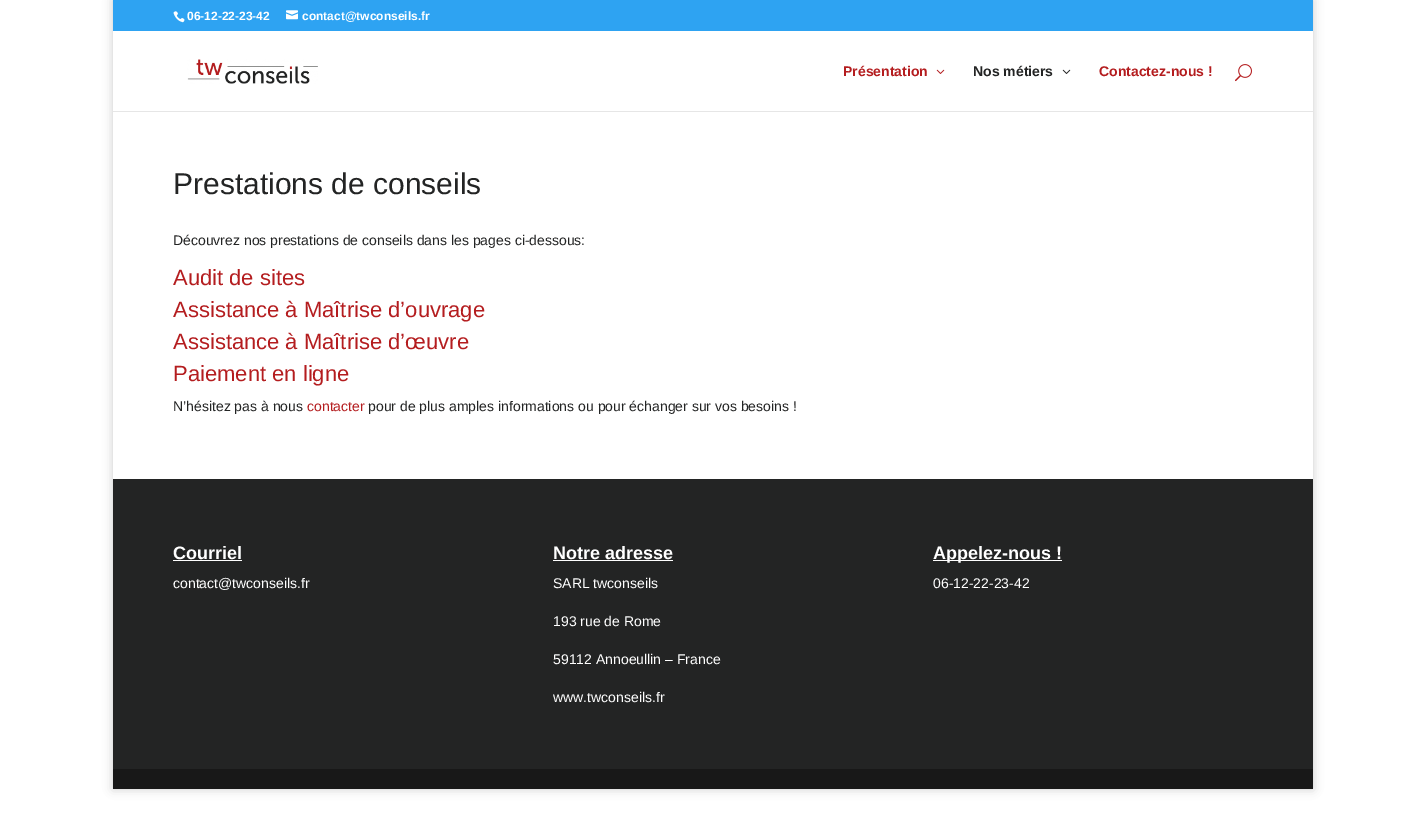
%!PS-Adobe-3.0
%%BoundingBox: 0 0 1426 827
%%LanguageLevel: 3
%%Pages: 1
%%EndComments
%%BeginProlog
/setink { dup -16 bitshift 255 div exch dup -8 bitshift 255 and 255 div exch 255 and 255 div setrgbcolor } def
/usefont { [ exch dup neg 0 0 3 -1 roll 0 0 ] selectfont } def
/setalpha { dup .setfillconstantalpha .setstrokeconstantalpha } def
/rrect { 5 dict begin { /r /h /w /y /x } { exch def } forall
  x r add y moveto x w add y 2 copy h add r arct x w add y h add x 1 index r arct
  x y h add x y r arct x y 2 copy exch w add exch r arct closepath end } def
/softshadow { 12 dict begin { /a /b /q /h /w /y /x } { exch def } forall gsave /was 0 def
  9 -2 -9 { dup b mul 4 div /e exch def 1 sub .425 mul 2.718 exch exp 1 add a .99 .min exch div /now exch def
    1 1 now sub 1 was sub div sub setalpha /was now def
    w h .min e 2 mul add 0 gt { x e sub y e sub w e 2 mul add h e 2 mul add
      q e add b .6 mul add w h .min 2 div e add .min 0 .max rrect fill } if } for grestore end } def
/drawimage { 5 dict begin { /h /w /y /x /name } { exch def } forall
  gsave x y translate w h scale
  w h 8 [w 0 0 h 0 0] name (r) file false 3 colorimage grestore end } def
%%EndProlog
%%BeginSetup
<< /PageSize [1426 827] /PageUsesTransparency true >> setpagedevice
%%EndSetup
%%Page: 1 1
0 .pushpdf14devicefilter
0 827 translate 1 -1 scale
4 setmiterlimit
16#FFFFFF setink
0 0 1426 827 rectfill
gsave
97 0 moveto 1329 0 lineto 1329 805 lineto 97 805 lineto closepath 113 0 moveto 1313 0 lineto 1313 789 lineto 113 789 lineto closepath eoclip newpath
16#000000 setink
113 0 1200 789 0 5 0.2 softshadow
grestore
16#2EA3F2 setink
113 0 1200 31 rectfill
(img1.raw) 173 11 12 12 drawimage
/LiberationSans-Bold 12 usefont
16#FFFFFF setink
187 20 moveto (06-12-22-23-42) show
(img2.raw) 286 10 12 10 drawimage
302 20 moveto (contact@twconseils.fr) show
16#E6E6E6 setink
113 111 1200 1 rectfill
(img3.raw) 187 59 131 25 drawimage
/LiberationSans-Bold 14 usefont
16#B41D1F setink
843 76 moveto (Présentation) show
(img4.raw) 936 69 9 5 drawimage
16#232424 setink
973 76 moveto (Nos métiers) show
(img5.raw) 1062 69 9 5 drawimage
16#B41D1F setink
1099 76 moveto (Contactez-nous !) show
(img6.raw) 1235 64 17 18 drawimage
/LiberationSans-Regular 30 usefont
16#232424 setink
173 194 moveto (Prestations de conseils) show
/LiberationSans-Regular 14 usefont
173 245 moveto (Découvrez nos prestations de conseils dans les pages ci-dessous:) show
/LiberationSans-Regular 22 usefont
16#B41D1F setink
[
    [(Audit de sites) 173 285]
    [(Assistance à Maîtrise d’ouvrage) 173 317]
    [(Assistance à Maîtrise d’œuvre) 173 349]
    [(Paiement en ligne) 173 381]
] { aload pop moveto show } forall
/LiberationSans-Regular 14 usefont
16#232424 setink
173 411 moveto (N’hésitez pas à nous) show
16#B41D1F setink
307 411 moveto (contacter) show
16#232424 setink
368 411 moveto (pour de plus amples informations ou pour échanger sur vos besoins !) show
113 479 1200 290 rectfill
/LiberationSans-Bold 18 usefont
16#FFFFFF setink
173 559 moveto (Courriel) show
173 560 69 1 rectfill
/LiberationSans-Regular 14 usefont
173 588 moveto (contact@twconseils.fr) show
/LiberationSans-Bold 18 usefont
553 559 moveto (Notre adresse) show
553 560 120 1 rectfill
/LiberationSans-Regular 14 usefont
[
    [(SARL twconseils) 553 588]
    [(193 rue de Rome) 553 626]
    [(59112 Annoeullin – France) 553 664]
    [(www.twconseils.fr) 553 702]
] { aload pop moveto show } forall
933 560 129 1 rectfill
/LiberationSans-Bold 18 usefont
933 559 moveto (Appelez-nous !) show
/LiberationSans-Regular 14 usefont
933 588 moveto (06-12-22-23-42) show
16#181818 setink
113 769 1200 20 rectfill
.poppdf14devicefilter showpage
%%EOF
